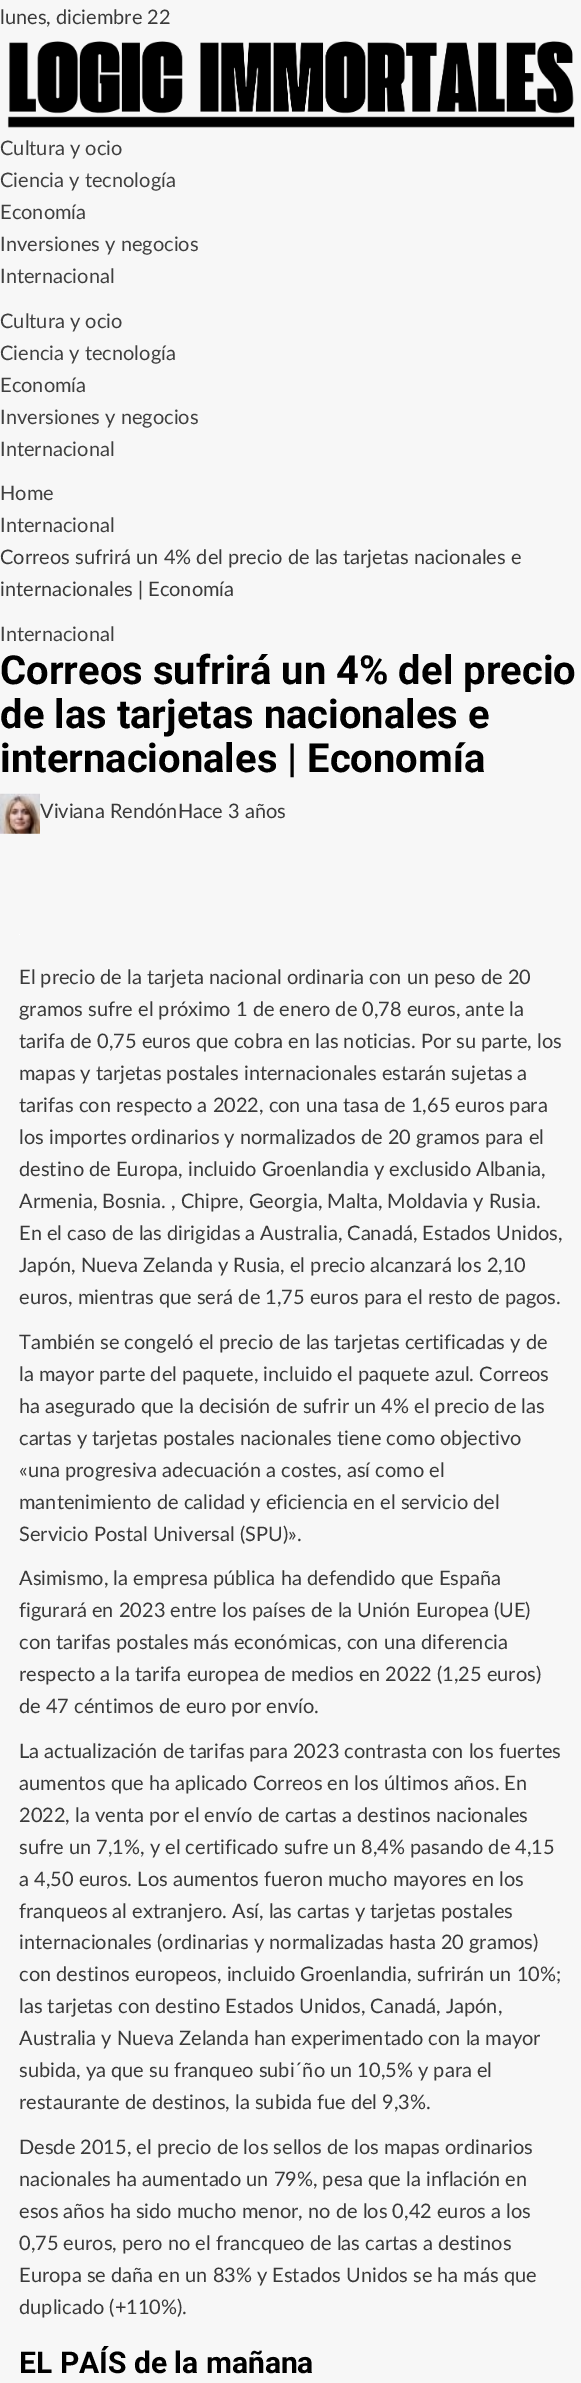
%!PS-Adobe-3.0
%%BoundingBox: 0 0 581 2383
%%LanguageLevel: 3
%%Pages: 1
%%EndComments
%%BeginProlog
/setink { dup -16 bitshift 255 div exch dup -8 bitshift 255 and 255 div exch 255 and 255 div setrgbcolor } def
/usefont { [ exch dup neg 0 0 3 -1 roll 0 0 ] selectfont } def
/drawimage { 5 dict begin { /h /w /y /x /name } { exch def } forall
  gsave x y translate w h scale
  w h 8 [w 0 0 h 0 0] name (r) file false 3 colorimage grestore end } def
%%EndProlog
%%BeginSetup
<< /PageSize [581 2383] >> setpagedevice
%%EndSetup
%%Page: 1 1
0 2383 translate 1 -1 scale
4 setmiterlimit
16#F7F7F7 setink
0 0 581 2383 rectfill
/Lato-Regular 20 usefont
16#3A3A3A setink
0 24 moveto (lunes, diciembre 22) show
(img1.raw) 7 41 568 87 drawimage
16#404040 setink
[
    [(Cultura y ocio) 0 155]
    [(Ciencia y tecnología) 0 187]
    [(Economía) 0 219]
    [(Inversiones y negocios) 0 251]
    [(Internacional) 0 283]
    [(Cultura y ocio) 0 328]
    [(Ciencia y tecnología) 0 360]
    [(Economía) 0 392]
    [(Inversiones y negocios) 0 424]
    [(Internacional) 0 456]
    [(Home) 0 500]
    [(Internacional) 0 532]
] { aload pop moveto show } forall
16#3A3A3A setink
0 564 moveto (Correos sufrirá un 4% del precio de las tarjetas nacionales e) show
0 596 moveto (internacionales | Economía) show
16#404040 setink
0 641 moveto (Internacional) show
/Roboto-Bold 40 usefont
16#000000 setink
[
    [(Correos sufrirá un 4% del precio) 0 684]
    [(de las tarjetas nacionales e) 0 728]
    [(internacionales | Economía) 0 772]
] { aload pop moveto show } forall
(img2.raw) 0 793 40 41 drawimage
/Lato-Regular 20 usefont
16#3A3A3A setink
40 818 moveto (Viviana RendónHace 3 años) show
16#FFFFFF setink
19 934 1 1 rectfill
16#3A3A3A setink
[
    [(El precio de la tarjeta nacional ordinaria con un peso de 20) 19 984]
    [(gramos sufre el próximo 1 de enero de 0,78 euros, ante la) 19 1016]
    [(tarifa de 0,75 euros que cobra en las noticias. Por su parte, los) 19 1048]
    [(mapas y tarjetas postales internacionales estarán sujetas a) 19 1080]
    [(tarifas con respecto a 2022, con una tasa de 1,65 euros para) 19 1112]
    [(los importes ordinarios y normalizados de 20 gramos para el) 19 1144]
    [(destino de Europa, incluido Groenlandia y exclusido Albania,) 19 1176]
    [(Armenia, Bosnia. , Chipre, Georgia, Malta, Moldavia y Rusia.) 19 1208]
    [(En el caso de las dirigidas a Australia, Canadá, Estados Unidos,) 19 1240]
    [(Japón, Nueva Zelanda y Rusia, el precio alcanzará los 2,10) 19 1272]
    [(euros, mientras que será de 1,75 euros para el resto de pagos.) 19 1304]
    [(También se congeló el precio de las tarjetas certificadas y de) 19 1349]
    [(la mayor parte del paquete, incluido el paquete azul. Correos) 19 1381]
    [(ha asegurado que la decisión de sufrir un 4% el precio de las) 19 1413]
    [(cartas y tarjetas postales nacionales tiene como objectivo) 19 1445]
    [(«una progresiva adecuación a costes, así como el) 19 1477]
    [(mantenimiento de calidad y eficiencia en el servicio del) 19 1509]
    [(Servicio Postal Universal \(SPU\)».) 19 1541]
    [(Asimismo, la empresa pública ha defendido que España) 19 1585]
    [(figurará en 2023 entre los países de la Unión Europea \(UE\)) 19 1617]
    [(con tarifas postales más económicas, con una diferencia) 19 1649]
    [(respecto a la tarifa europea de medios en 2022 \(1,25 euros\)) 19 1681]
    [(de 47 céntimos de euro por envío.) 19 1713]
    [(La actualización de tarifas para 2023 contrasta con los fuertes) 19 1758]
    [(aumentos que ha aplicado Correos en los últimos años. En) 19 1790]
    [(2022, la venta por el envío de cartas a destinos nacionales) 19 1822]
    [(sufre un 7,1%, y el certificado sufre un 8,4% pasando de 4,15) 19 1854]
    [(a 4,50 euros. Los aumentos fueron mucho mayores en los) 19 1886]
    [(franqueos al extranjero. Así, las cartas y tarjetas postales) 19 1918]
    [(internacionales \(ordinarias y normalizadas hasta 20 gramos\)) 19 1949]
    [(con destinos europeos, incluido Groenlandia, sufrirán un 10%;) 19 1981]
    [(las tarjetas con destino Estados Unidos, Canadá, Japón,) 19 2013]
    [(Australia y Nueva Zelanda han experimentado con la mayor) 19 2045]
    [(subida, ya que su franqueo subi´ño un 10,5% y para el) 19 2077]
    [(restaurante de destinos, la subida fue del 9,3%.) 19 2109]
    [(Desde 2015, el precio de los sellos de los mapas ordinarios) 19 2154]
    [(nacionales ha aumentado un 79%, pesa que la inflación en) 19 2186]
    [(esos años ha sido mucho menor, no de los 0,42 euros a los) 19 2218]
    [(0,75 euros, pero no el francqueo de las cartas a destinos) 19 2250]
    [(Europa se daña en un 83% y Estados Unidos se ha más que) 19 2282]
    [(duplicado \(+110%\).) 19 2314]
] { aload pop moveto show } forall
/Roboto-Bold 30 usefont
16#000000 setink
19 2373 moveto (EL PAÍS de la mañana) show
showpage
%%EOF
